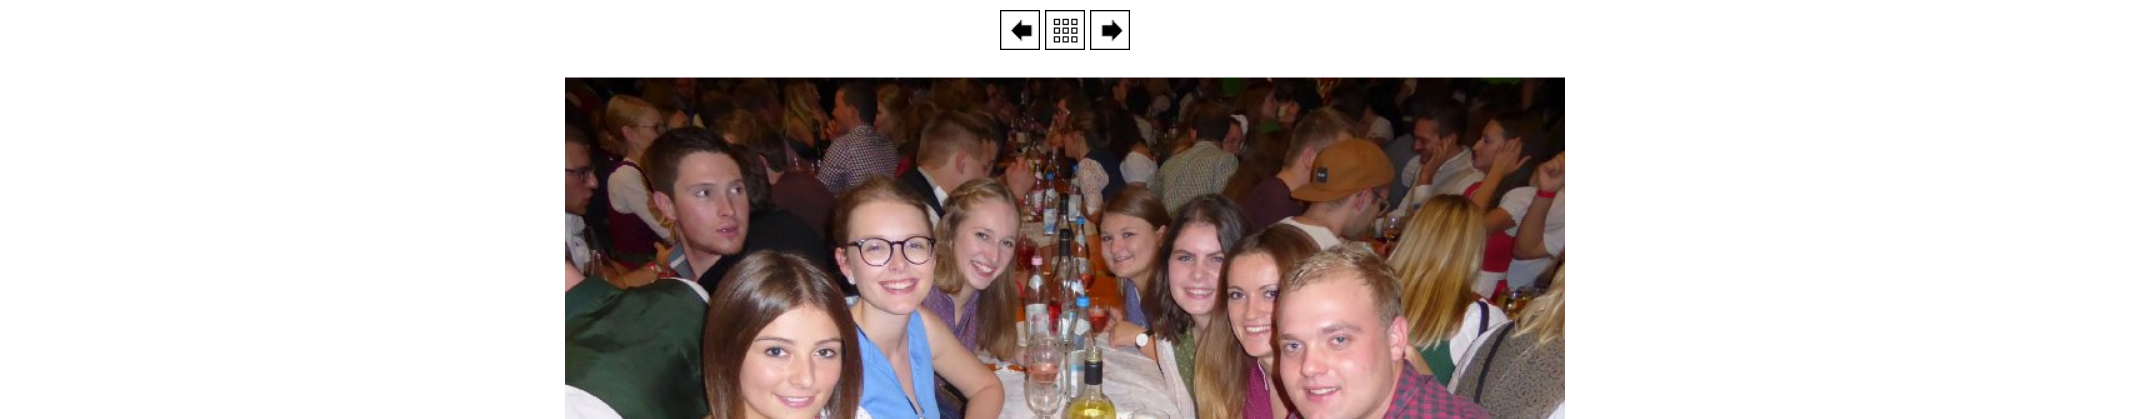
%!PS-Adobe-3.0
%%BoundingBox: 0 0 2130 419
%%LanguageLevel: 3
%%Pages: 1
%%EndComments
%%BeginProlog
/setink { dup -16 bitshift 255 div exch dup -8 bitshift 255 and 255 div exch 255 and 255 div setrgbcolor } def
/drawimage { 5 dict begin { /h /w /y /x /name } { exch def } forall
  gsave x y translate w h scale
  w h 8 [w 0 0 h 0 0] name (r) file false 3 colorimage grestore end } def
%%EndProlog
%%BeginSetup
<< /PageSize [2130 419] >> setpagedevice
%%EndSetup
%%Page: 1 1
0 419 translate 1 -1 scale
4 setmiterlimit
16#FFFFFF setink
0 0 2130 419 rectfill
(img1.raw) 1000 10 40 40 drawimage
(img2.raw) 1045 10 40 40 drawimage
(img3.raw) 1090 10 40 40 drawimage
(img4.raw) 565 77 1000 342 drawimage
showpage
%%EOF
